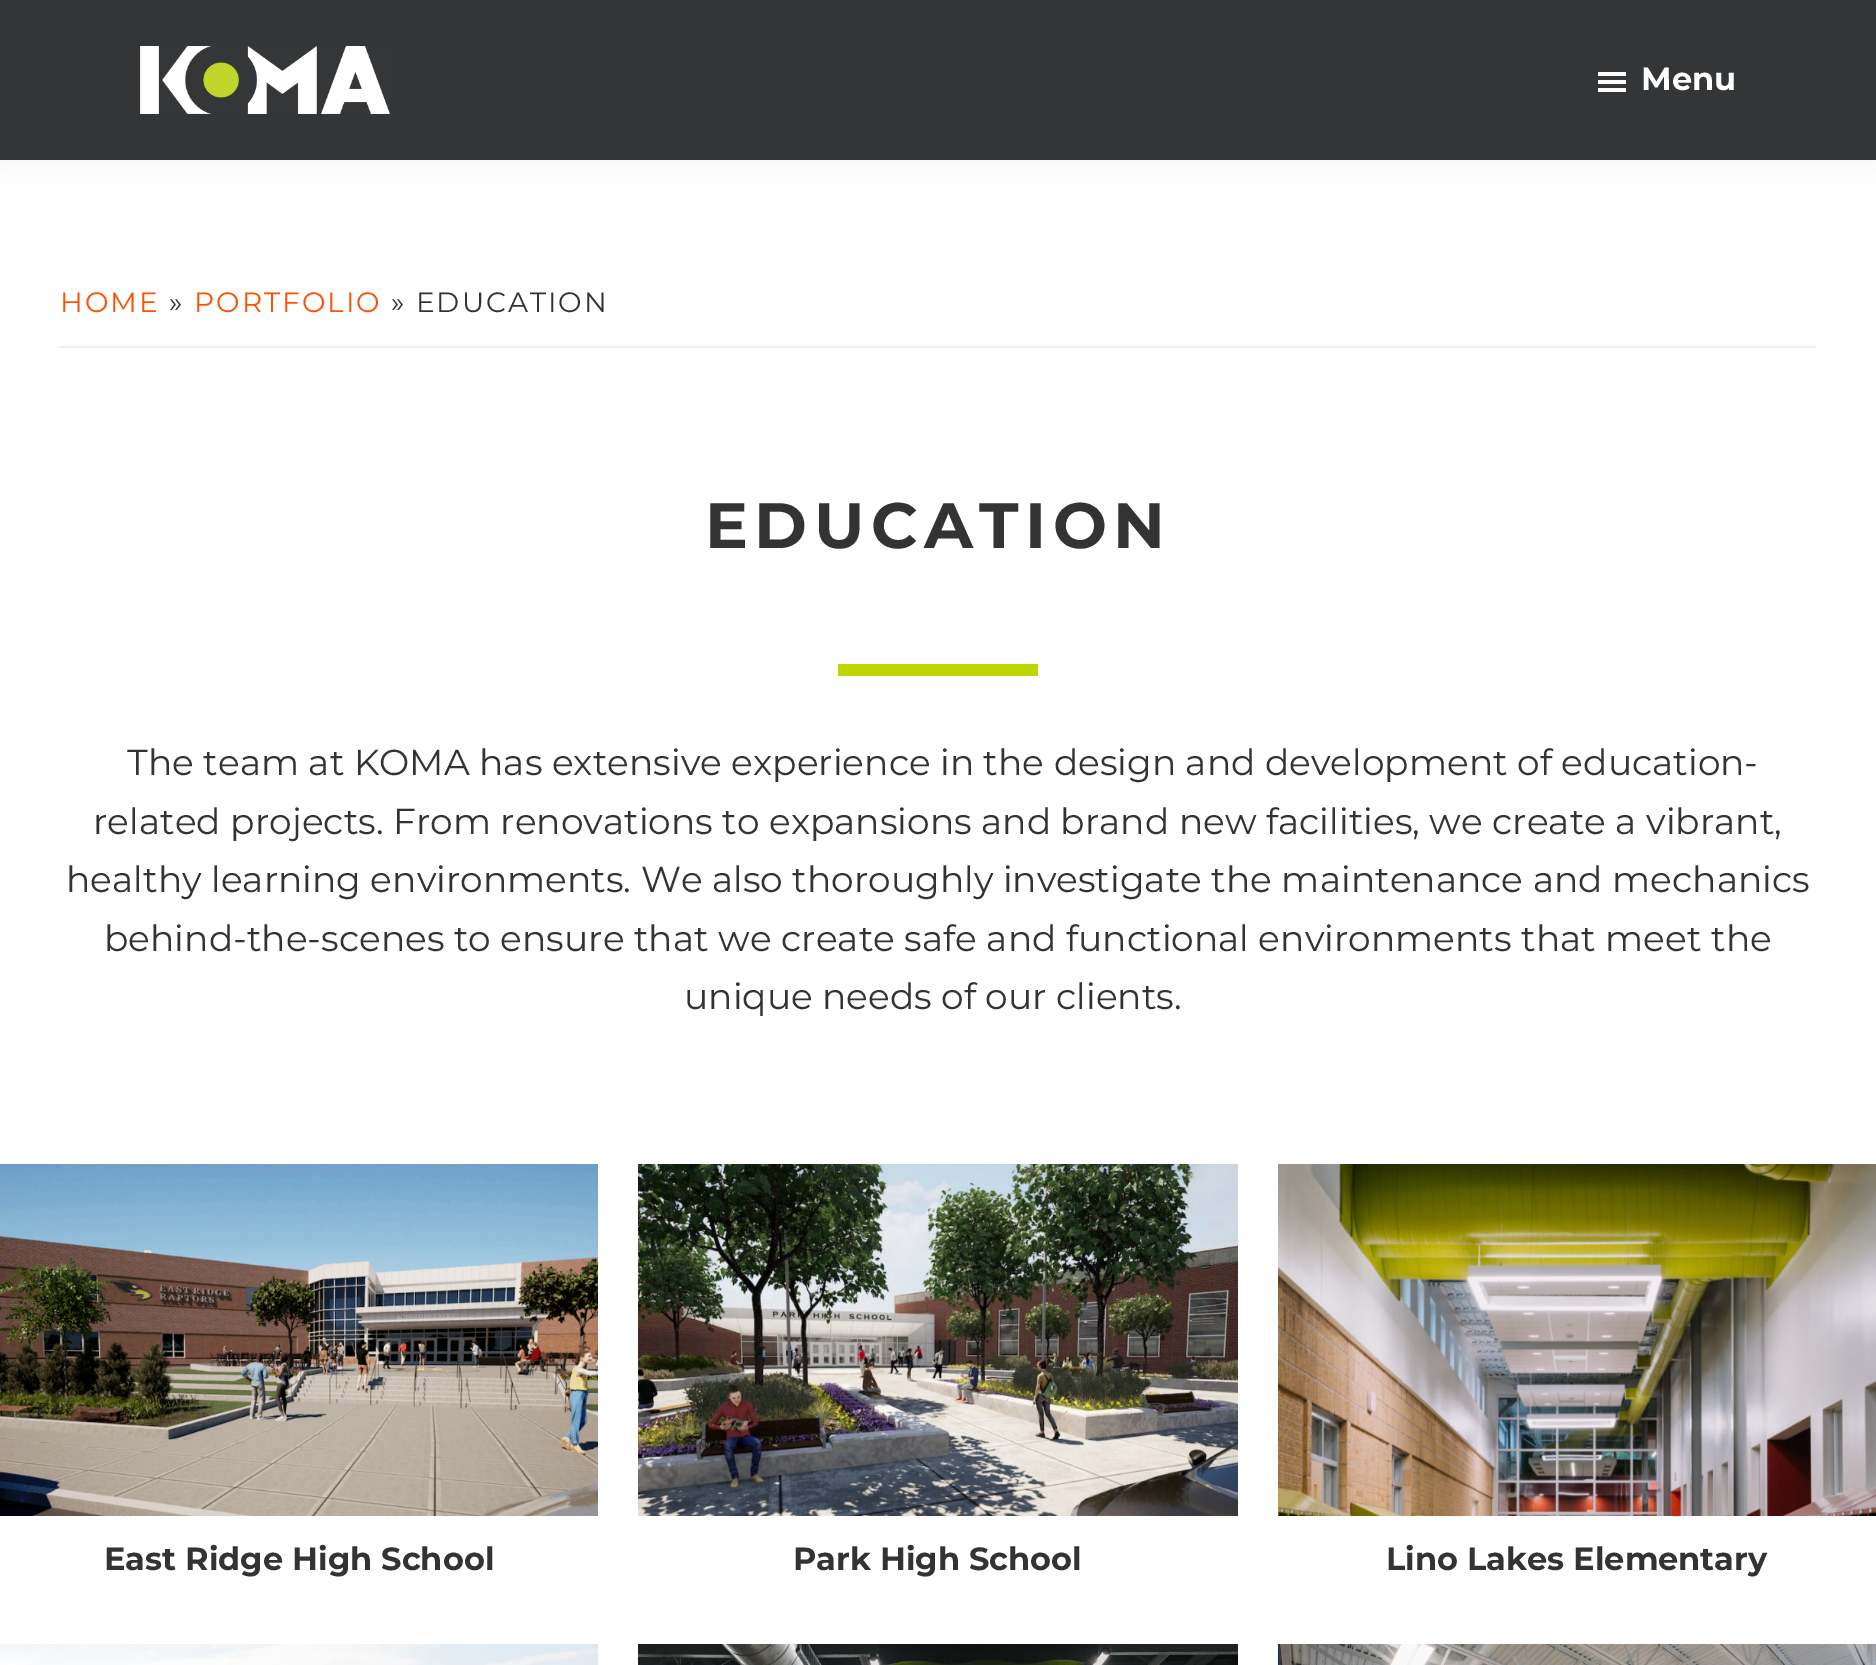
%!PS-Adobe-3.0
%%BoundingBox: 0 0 1876 1665
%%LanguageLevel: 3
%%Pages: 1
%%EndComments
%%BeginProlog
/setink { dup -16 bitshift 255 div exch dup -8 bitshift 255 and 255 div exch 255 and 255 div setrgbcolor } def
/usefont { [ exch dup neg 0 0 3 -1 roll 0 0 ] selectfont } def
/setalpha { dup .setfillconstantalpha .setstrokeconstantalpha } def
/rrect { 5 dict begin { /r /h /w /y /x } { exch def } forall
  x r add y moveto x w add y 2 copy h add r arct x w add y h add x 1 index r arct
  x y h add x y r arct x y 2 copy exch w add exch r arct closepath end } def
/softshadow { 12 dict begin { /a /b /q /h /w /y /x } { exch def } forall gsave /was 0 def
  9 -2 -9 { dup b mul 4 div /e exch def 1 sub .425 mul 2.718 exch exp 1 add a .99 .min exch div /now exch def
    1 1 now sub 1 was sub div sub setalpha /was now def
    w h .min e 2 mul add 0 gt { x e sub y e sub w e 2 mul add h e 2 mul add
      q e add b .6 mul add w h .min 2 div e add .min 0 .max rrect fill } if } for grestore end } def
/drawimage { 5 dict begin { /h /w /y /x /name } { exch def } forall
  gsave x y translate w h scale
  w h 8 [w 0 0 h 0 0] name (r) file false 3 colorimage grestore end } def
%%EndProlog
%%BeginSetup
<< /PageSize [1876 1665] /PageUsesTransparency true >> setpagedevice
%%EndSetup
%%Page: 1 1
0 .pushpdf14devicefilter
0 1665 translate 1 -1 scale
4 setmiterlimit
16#FFFFFF setink
0 0 1876 1665 rectfill
16#000000 setink
0 0 1876 160 0 20 0.05 softshadow
16#343537 setink
0 0 1876 160 rectfill
(img1.raw) 140 46 250 68 drawimage
(img2.raw) 1598 72 28 20 drawimage
/Montserrat-Bold 32 usefont
16#FFFFFF setink
1641 90 moveto (Menu) show
16#EEEEEE setink
60 346 1756 2 rectfill
/Montserrat-Regular 28 usefont
16#FE5000 setink
60 312 moveto 2 0 (HOME) ashow
16#333333 setink
169 312 moveto 2 0 (») ashow
16#FE5000 setink
194 312 moveto 2 0 (PORTFOLIO) ashow
16#333333 setink
391 312 moveto 2 0 (» EDUCATION) ashow
/Montserrat-Bold 64 usefont
705 548 moveto 6.5 0 (EDUCATION) ashow
16#BED600 setink
838 664 200 12 rectfill
/Montserrat-Regular 36 usefont
16#333333 setink
[
    [(The team at KOMA has extensive experience in the design and development of education-) 127 775]
    [(related projects. From renovations to expansions and brand new facilities, we create a vibrant,) 93 834]
    [(healthy learning environments. We also thoroughly investigate the maintenance and mechanics) 66 892]
    [(behind-the-scenes to ensure that we create safe and functional environments that meet the) 104 951]
    [(unique needs of our clients.) 684 1009]
] { aload pop moveto show } forall
(img3.raw) 0 1164 598 352 drawimage
/Montserrat-Bold 32 usefont
104 1570 moveto (East Ridge High School) show
(img4.raw) 638 1164 600 352 drawimage
793 1570 moveto (Park High School) show
(img5.raw) 1278 1164 598 352 drawimage
1386 1570 moveto (Lino Lakes Elementary) show
(img6.raw) 0 1644 598 21 drawimage
(img7.raw) 638 1644 600 21 drawimage
(img8.raw) 1278 1644 598 21 drawimage
.poppdf14devicefilter showpage
%%EOF
